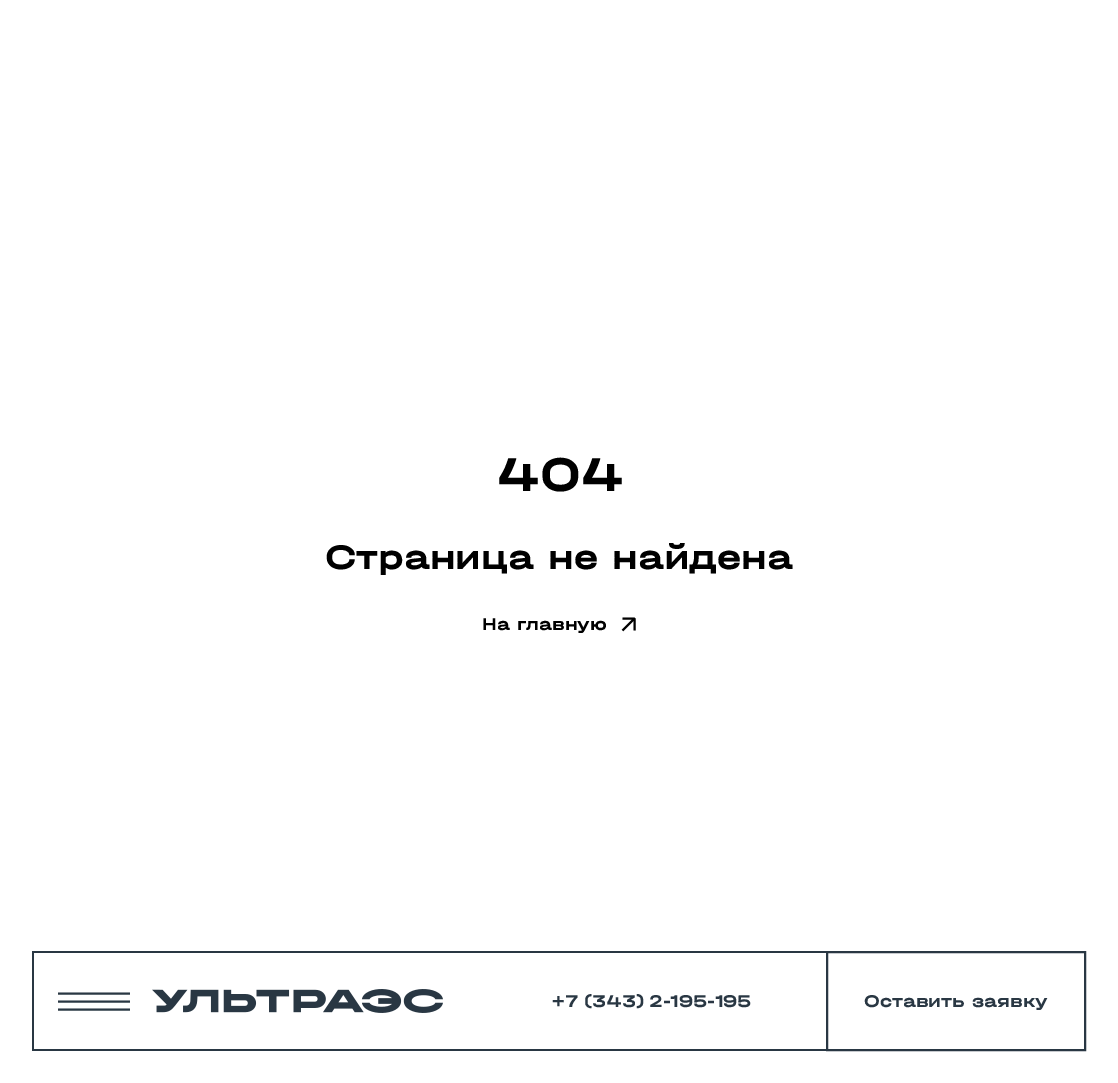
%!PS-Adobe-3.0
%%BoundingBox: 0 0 1118 1083
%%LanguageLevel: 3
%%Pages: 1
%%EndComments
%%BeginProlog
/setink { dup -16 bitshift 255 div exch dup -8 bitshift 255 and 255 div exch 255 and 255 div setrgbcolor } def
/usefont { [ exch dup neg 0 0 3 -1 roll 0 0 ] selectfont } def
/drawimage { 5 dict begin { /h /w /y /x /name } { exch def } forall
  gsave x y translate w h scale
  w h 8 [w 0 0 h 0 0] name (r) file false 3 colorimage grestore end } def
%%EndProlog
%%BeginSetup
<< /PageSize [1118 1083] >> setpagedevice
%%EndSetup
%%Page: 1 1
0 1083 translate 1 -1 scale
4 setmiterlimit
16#FFFFFF setink
0 0 1118 1083 rectfill
/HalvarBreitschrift-Bold 50 usefont
16#000000 setink
496 491 moveto -1 0 (404) ashow
/HalvarBreitschrift-Bold 36 usefont
325 569 moveto (Страница не найдена) show
/HalvarBreitschrift-Bold 18 usefont
482 630 moveto (На главную) show
1.9 setlinewidth
2 setlinejoin
622.5 618.5 moveto 634.5 618.5 lineto 634.5 630.5 lineto 622.5 630.5 moveto 634.5 618.5 lineto stroke
[
    [32 951 794 2 16#293743]
    [32 1049 794 2 16#293743]
    [32 951 2 100 16#293743]
] { aload pop setink rectfill } forall
2 setlinewidth
0 setlinejoin
58 1009.5 moveto 130 1009.5 lineto stroke
58 1001.5 moveto 130 1001.5 lineto stroke
58 993.5 moveto 130 993.5 lineto stroke
(img1.raw) 152 989 291 24 drawimage
551 1007 moveto -1 0 32 -0.4 0 (+7 \(343\) 2-195-195) awidthshow
827 952 258 98 rectstroke
864 1007 moveto (Оставить заявку) show
showpage
%%EOF
